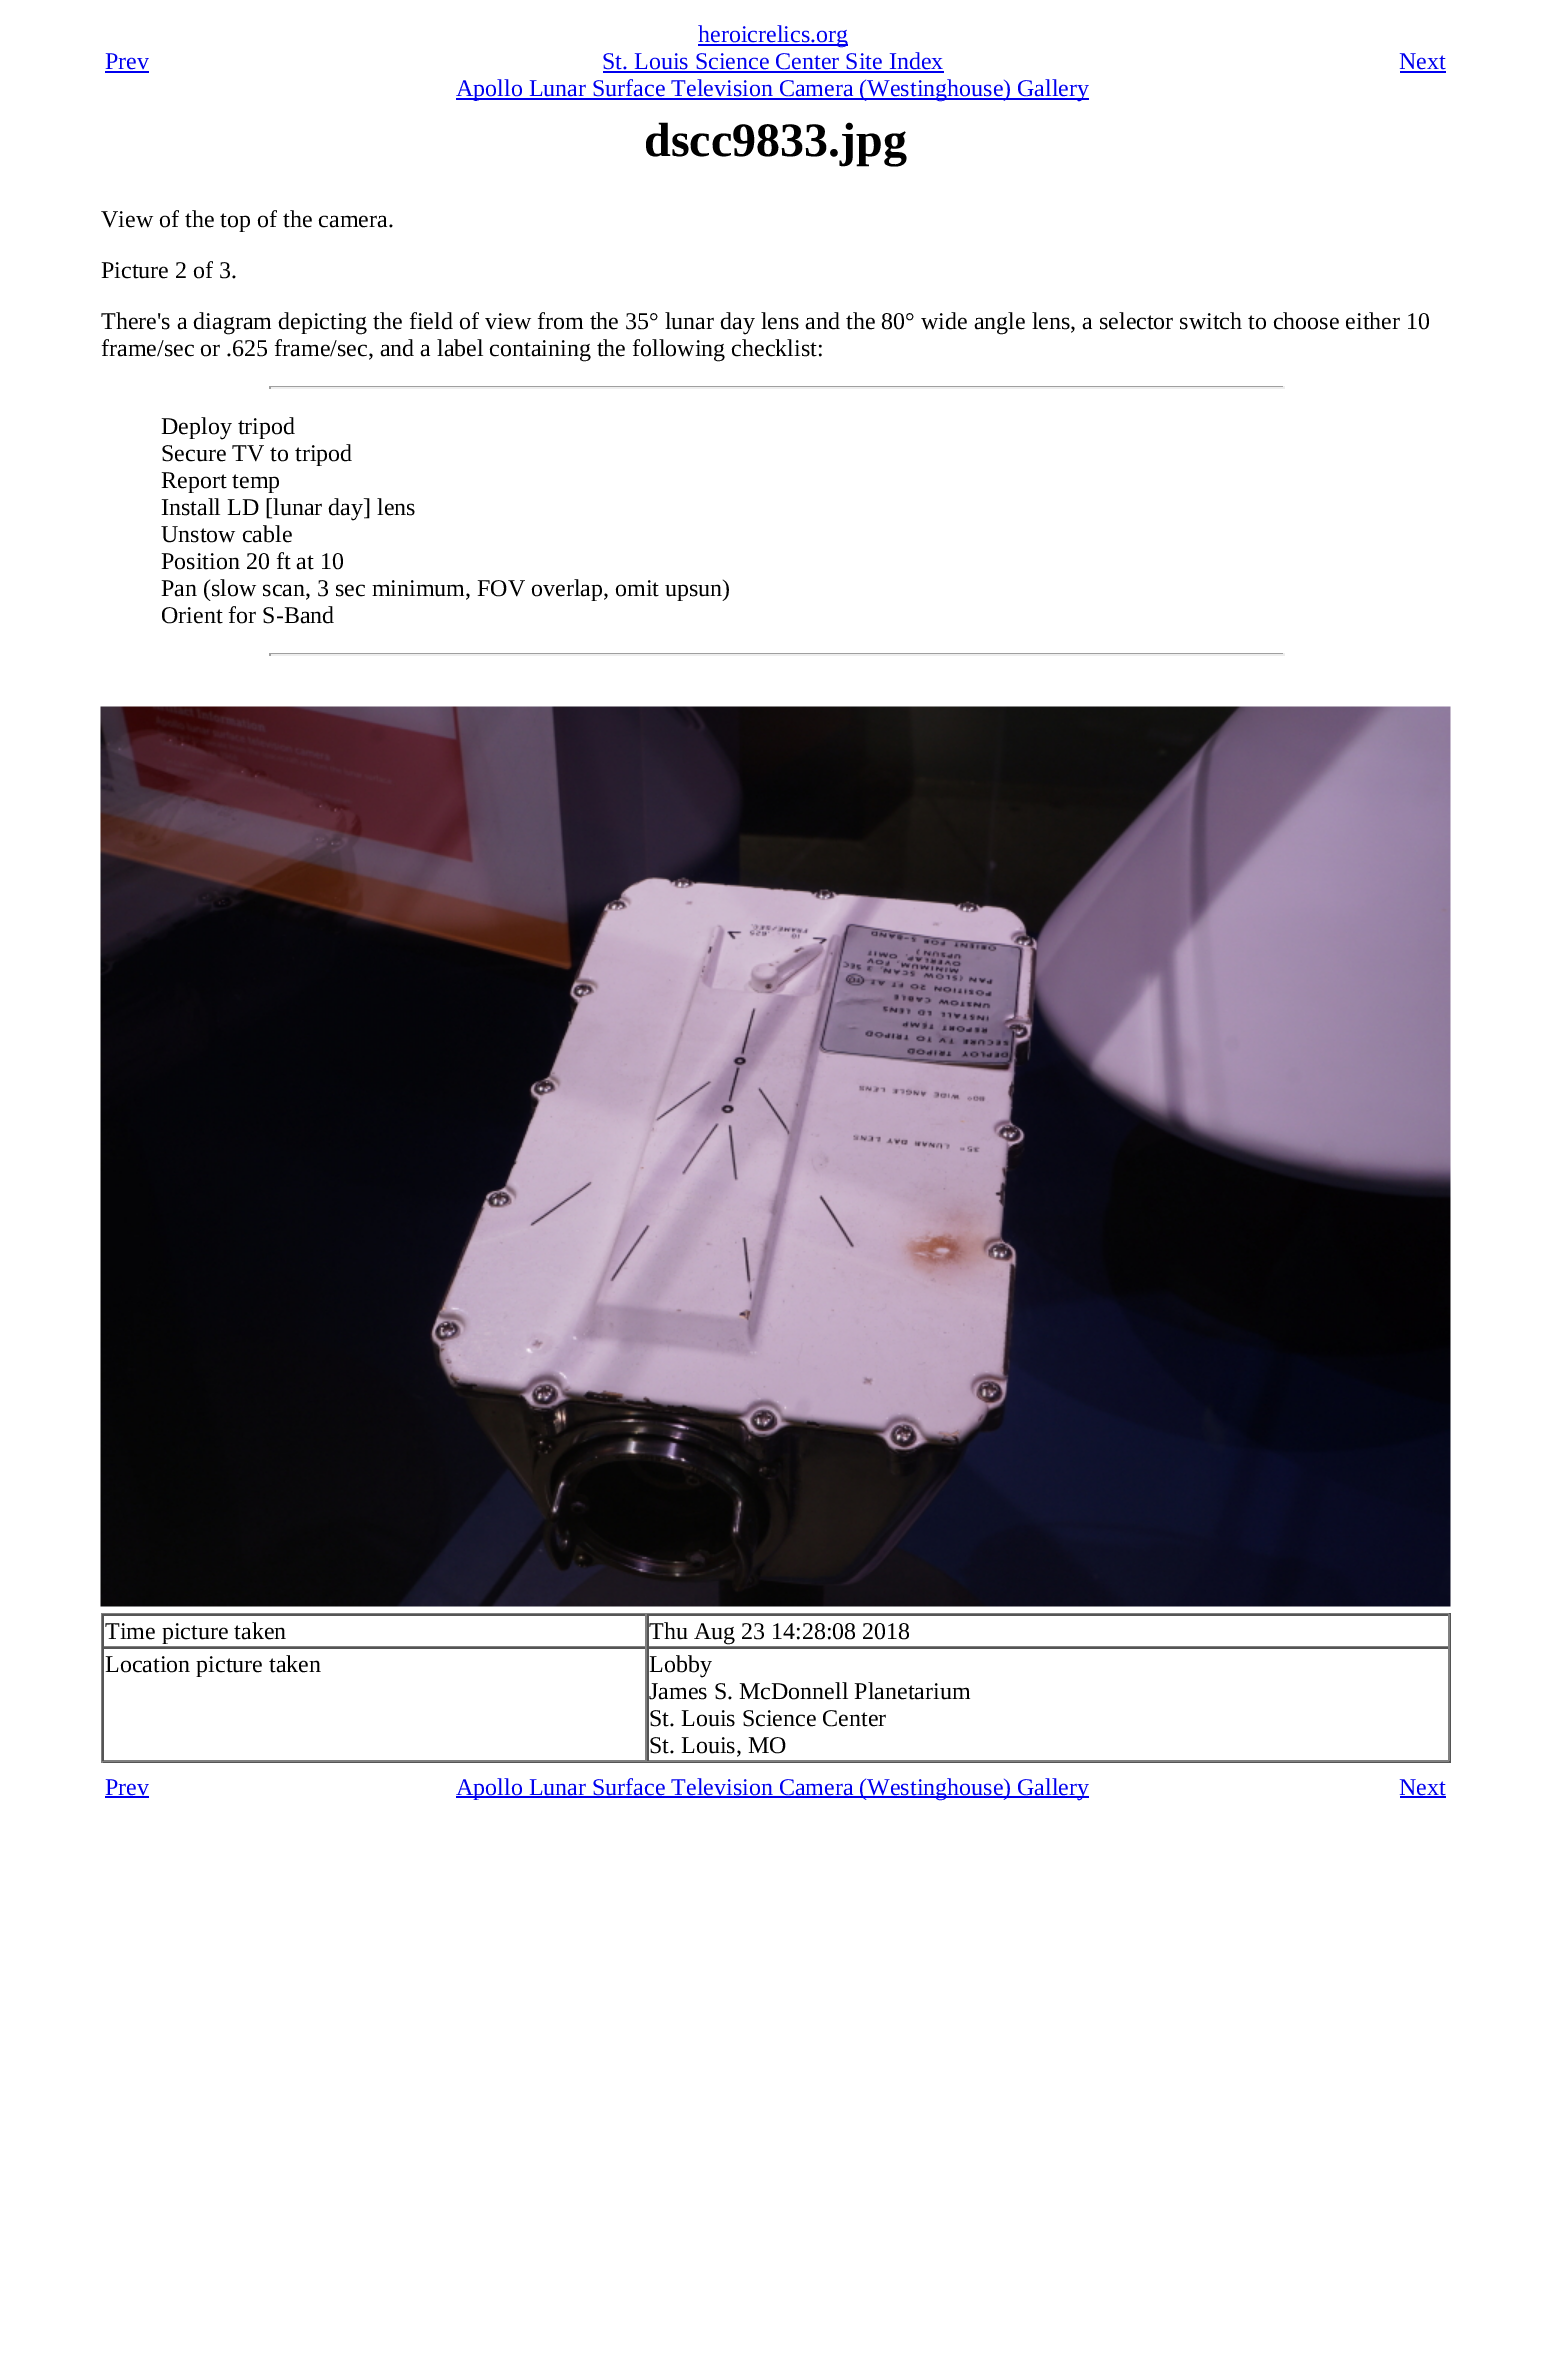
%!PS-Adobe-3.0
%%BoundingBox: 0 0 1551 2373
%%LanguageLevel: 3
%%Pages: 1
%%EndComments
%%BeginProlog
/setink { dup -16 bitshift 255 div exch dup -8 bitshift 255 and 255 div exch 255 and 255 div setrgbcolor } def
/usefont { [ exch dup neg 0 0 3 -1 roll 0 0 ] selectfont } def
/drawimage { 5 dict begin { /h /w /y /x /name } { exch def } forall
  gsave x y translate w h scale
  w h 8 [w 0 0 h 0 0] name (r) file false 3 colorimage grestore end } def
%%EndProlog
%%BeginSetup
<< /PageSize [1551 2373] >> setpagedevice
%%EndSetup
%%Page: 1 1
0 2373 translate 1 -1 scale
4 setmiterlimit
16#FFFFFF setink
0 0 1551 2373 rectfill
/LiberationSerif-Regular 24 usefont
16#0000EE setink
105 69 moveto (Prev) show
105 71 44 2 rectfill
698 44 150 2 rectfill
698 42 moveto (heroicrelics.org) show
602 69 moveto (St. Louis Science Center Site Index) show
603 71 341 2 rectfill
456 98 633 2 rectfill
456 96 moveto (Apollo Lunar Surface Television Camera \(Westinghouse\) Gallery) show
1399 69 moveto (Next) show
1400 71 46 2 rectfill
/LiberationSerif-Bold 48 usefont
16#000000 setink
644 156 moveto (dscc9833.jpg) show
/LiberationSerif-Regular 24 usefont
[
    [(View of the top of the camera.) 101 227]
    [(Picture 2 of 3.) 101 278]
    [(There's a diagram depicting the field of view from the 35° lunar day lens and the 80° wide angle lens, a selector switch to choose either 10) 101 329]
    [(frame/sec or .625 frame/sec, and a label containing the following checklist:) 101 356]
] { aload pop moveto show } forall
[
    [269 386 1015 1 16#9F9F9F]
    [1283 386 2 3 16#EEEEEE]
    [269 387 1015 2 16#EEEEEE]
    [269 386 2 3 16#9F9F9F]
] { aload pop setink rectfill } forall
16#000000 setink
[
    [(Deploy tripod) 161 434]
    [(Secure TV to tripod) 161 461]
    [(Report temp) 161 488]
    [(Install LD [lunar day] lens) 161 515]
    [(Unstow cable) 161 542]
    [(Position 20 ft at 10) 161 569]
    [(Pan \(slow scan, 3 sec minimum, FOV overlap, omit upsun\)) 161 596]
    [(Orient for S-Band) 161 623]
] { aload pop moveto show } forall
[
    [269 653 1015 1 16#9F9F9F]
    [1283 653 2 3 16#EEEEEE]
    [269 654 1015 2 16#EEEEEE]
    [269 653 2 3 16#9F9F9F]
] { aload pop setink rectfill } forall
(img1.raw) 100 706 1351 901 drawimage
[
    [101 1613 1350 1 16#808080]
    [1449 1613 2 150 16#555555]
    [101 1761 1350 2 16#555555]
    [101 1613 2 150 16#808080]
    [102 1614 1347 2 16#555555]
    [645 1614 2 33 16#808080]
    [102 1646 545 1 16#808080]
    [102 1614 2 33 16#555555]
] { aload pop setink rectfill } forall
16#000000 setink
105 1639 moveto (Time picture taken) show
[
    [1448 1614 2 33 16#808080]
    [647 1646 802 1 16#808080]
    [647 1614 2 33 16#555555]
] { aload pop setink rectfill } forall
16#000000 setink
649 1639 moveto (Thu Aug 23 14:28:08 2018) show
[
    [102 1647 1347 2 16#555555]
    [645 1647 2 114 16#808080]
    [102 1760 545 2 16#808080]
    [102 1647 2 114 16#555555]
] { aload pop setink rectfill } forall
16#000000 setink
105 1672 moveto (Location picture taken) show
[
    [1448 1647 2 114 16#808080]
    [647 1760 802 2 16#808080]
    [647 1647 2 114 16#555555]
] { aload pop setink rectfill } forall
16#000000 setink
[
    [(Lobby) 649 1672]
    [(James S. McDonnell Planetarium) 649 1699]
    [(St. Louis Science Center) 649 1726]
    [(St. Louis, MO) 649 1753]
] { aload pop moveto show } forall
16#0000EE setink
105 1795 moveto (Prev) show
105 1796 44 2 rectfill
456 1796 633 2 rectfill
456 1795 moveto (Apollo Lunar Surface Television Camera \(Westinghouse\) Gallery) show
1399 1795 moveto (Next) show
1400 1796 46 2 rectfill
showpage
%%EOF
